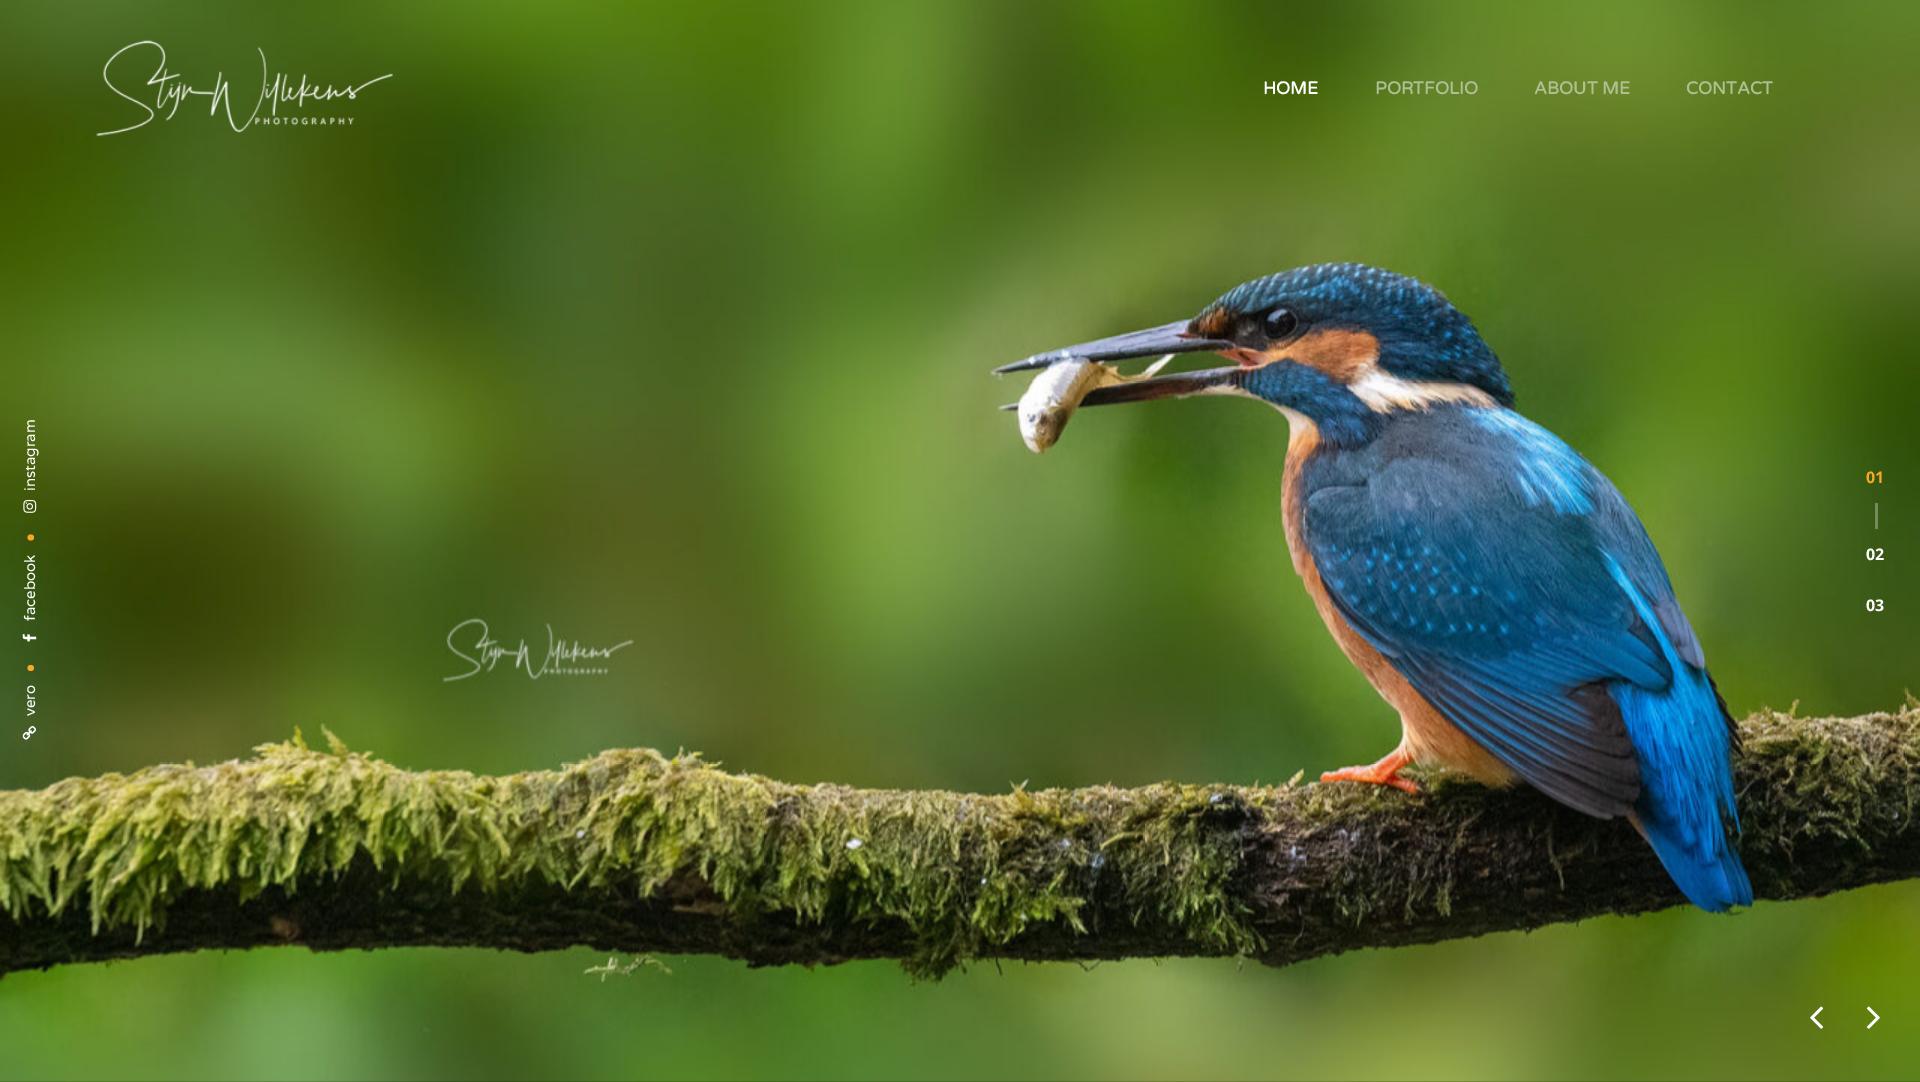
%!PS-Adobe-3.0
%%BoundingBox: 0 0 1920 1082
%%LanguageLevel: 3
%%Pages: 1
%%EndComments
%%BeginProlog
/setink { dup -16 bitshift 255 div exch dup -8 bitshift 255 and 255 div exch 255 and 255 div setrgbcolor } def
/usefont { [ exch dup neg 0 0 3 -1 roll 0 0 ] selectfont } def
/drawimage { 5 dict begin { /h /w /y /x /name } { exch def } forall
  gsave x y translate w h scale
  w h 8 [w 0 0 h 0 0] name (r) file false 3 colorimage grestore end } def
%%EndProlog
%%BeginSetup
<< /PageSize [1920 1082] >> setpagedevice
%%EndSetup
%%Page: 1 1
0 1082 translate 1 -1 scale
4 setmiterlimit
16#FFFFFF setink
0 0 1920 1082 rectfill
(img1.raw) 0 1081 1920 1 drawimage
(img6.raw) 0 0 1920 1082 drawimage
(img2.raw) 96 39 297 98 drawimage
/VarelaRound-Bold 17.5 usefont
1263 94 moveto (HOME) show
16#AFBF92 setink
[
    [(PORTFOLIO) 1375 94]
    [(ABOUT ME) 1534 94]
    [(CONTACT) 1686 94]
] { aload pop moveto show } forall
/VarelaRound-Regular 15 usefont
16#FFFFFF setink
gsave 35 491 translate -90 rotate 0 0 moveto (instagram) show grestore
(img3.raw) 23 499 14 14 drawimage
16#F9A926 setink
27.5 537.5 moveto 27.5 533.5 34 533.5 34 537.5 curveto 34 541.5 27.5 541.5 27.5 537.5 curveto closepath fill
16#FFFFFF setink
gsave 35 621 translate -90 rotate 0 0 moveto (facebook) show grestore
(img4.raw) 22 634 15 8 drawimage
16#F9A926 setink
27.5 668 moveto 27.5 664 34 664 34 668 curveto 34 672 27.5 672 27.5 668 curveto closepath fill
16#FFFFFF setink
gsave 35 716 translate -90 rotate 0 0 moveto (vero) show grestore
(img5.raw) 22 726 14 14 drawimage
/OpenSans-Bold 16 usefont
16#F9A926 setink
1866 483 moveto (01) show
16#748A5B setink
1875 503 3 26 rectfill
16#FFFFFF setink
1866 560 moveto (02) show
1866 611 moveto (03) show
(img7.raw) 1810 1006 14 23 drawimage
(img8.raw) 1866 1006 14 23 drawimage
showpage
%%EOF
